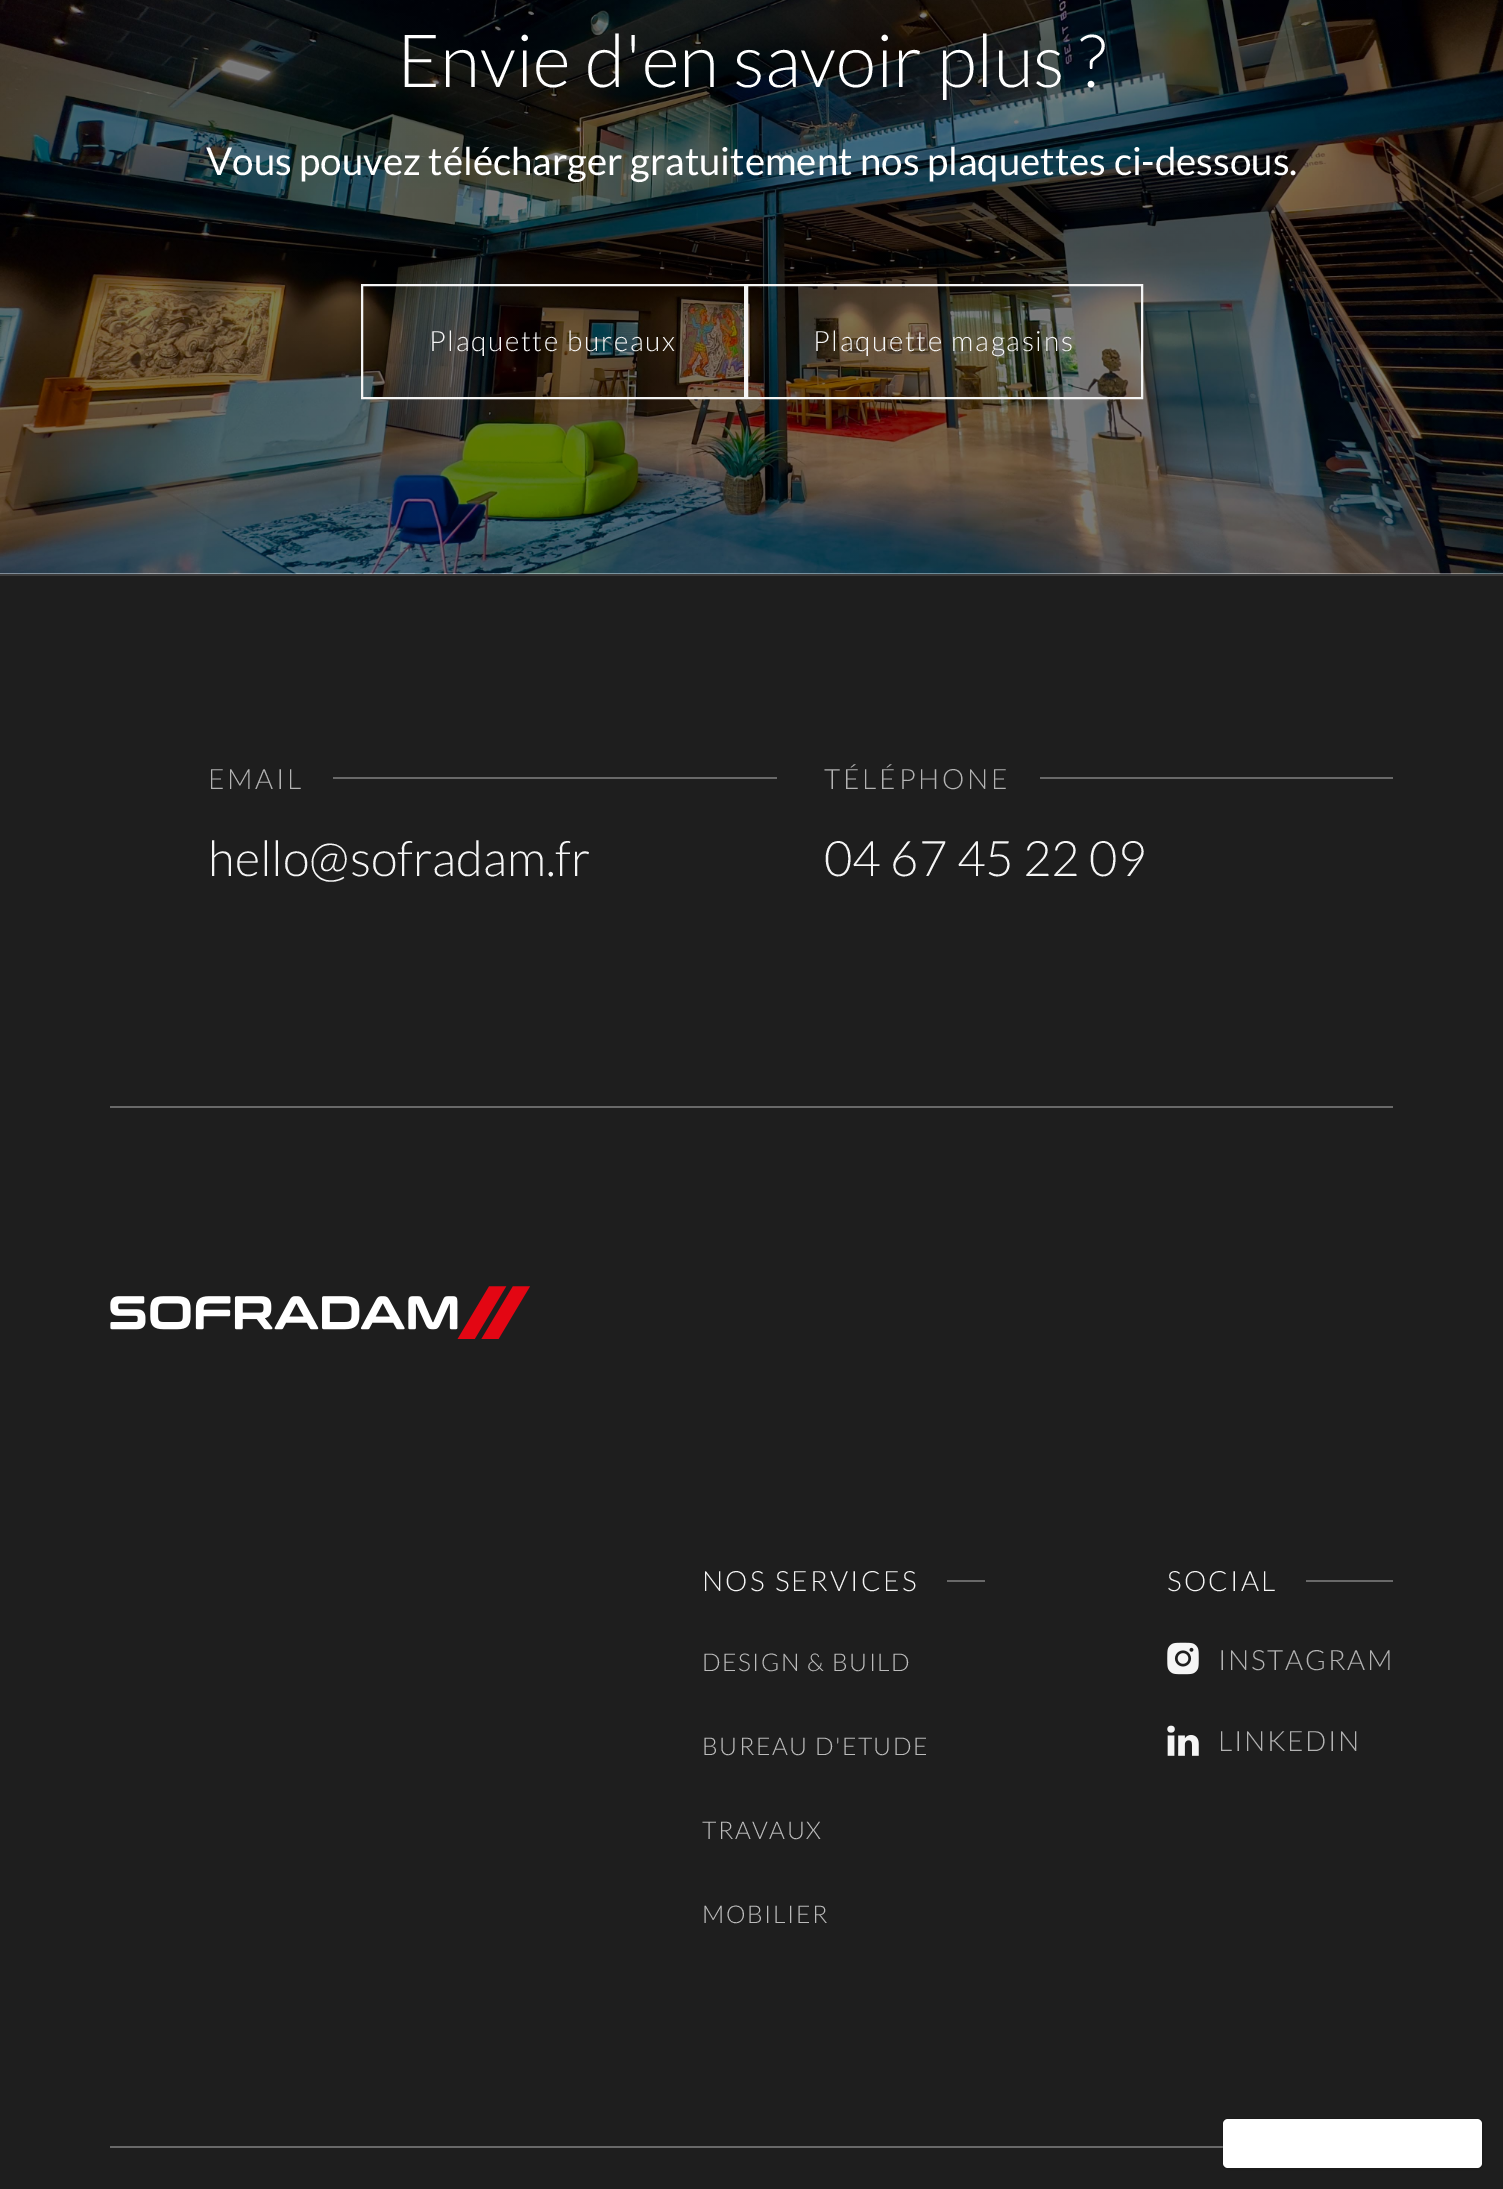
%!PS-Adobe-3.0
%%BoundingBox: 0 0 1503 2189
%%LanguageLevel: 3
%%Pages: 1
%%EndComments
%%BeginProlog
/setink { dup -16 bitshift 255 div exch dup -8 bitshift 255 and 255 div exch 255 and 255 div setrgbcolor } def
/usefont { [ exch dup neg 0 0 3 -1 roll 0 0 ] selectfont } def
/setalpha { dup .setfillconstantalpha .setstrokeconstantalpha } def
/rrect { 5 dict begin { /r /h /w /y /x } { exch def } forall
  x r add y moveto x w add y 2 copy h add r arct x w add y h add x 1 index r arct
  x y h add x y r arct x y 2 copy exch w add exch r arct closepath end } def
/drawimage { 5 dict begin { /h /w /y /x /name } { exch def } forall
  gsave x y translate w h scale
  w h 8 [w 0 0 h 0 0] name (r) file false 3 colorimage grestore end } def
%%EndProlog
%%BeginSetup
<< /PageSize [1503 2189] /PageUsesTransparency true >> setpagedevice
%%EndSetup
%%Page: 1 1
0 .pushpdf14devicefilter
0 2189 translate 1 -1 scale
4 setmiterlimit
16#FFFFFF setink
0 0 1503 2189 rectfill
(img1.raw) 0 0 1503 574 drawimage
/Lato-Light 73.5 usefont
397 87 moveto (Envie d'en savoir plus ?) show
/Lato-Regular 38.5 usefont
206 175 moveto (Vous pouvez télécharger gratuitement nos plaquettes ci-dessous.) show
16#F5F5F5 setink
2 setlinewidth
362 285 383 113 rectstroke
/Lato-Light 28 usefont
429 351 moveto 1.7 0 (Plaquette bureaux) ashow
747 285 395 113 rectstroke
813 351 moveto 1.7 0 (Plaquette magasins) ashow
[
    [0 576 1503 1613 16#1E1E1E]
    [0 574 1503 2 16#3B3B3B]
    [110 1106 1283 2 16#696969]
] { aload pop setink rectfill } forall
16#B3B3B3 setink
208 789 moveto 2.75 0 (EMAIL) ashow
16#696969 setink
333 777 444 2 rectfill
/Lato-Light 49 usefont
16#F5F5F5 setink
208 876 moveto (hello@sofradam.fr) show
/Lato-Light 28 usefont
16#B3B3B3 setink
824 789 moveto 2.75 0 (TÉLÉPHONE) ashow
16#696969 setink
1040 777 353 2 rectfill
/Lato-Light 49 usefont
16#F5F5F5 setink
824 876 moveto (04 67 45 22 09) show
(img2.raw) 110 1286 420 53 drawimage
/Lato-Light 28 usefont
702 1591 moveto 2.25 0 (NOS SERVICES) ashow
16#696969 setink
947 1580 38 2 rectfill
/Lato-Light 24.5 usefont
16#BCBCBC setink
702 1671 moveto 1.5 0 (DESIGN & BUILD) ashow
702 1755 moveto 1.5 0 (BUREAU D'ETUDE) ashow
702 1839 moveto 1.5 0 (TRAVAUX) ashow
702 1923 moveto 1.5 0 (MOBILIER) ashow
/Lato-Light 28 usefont
16#F5F5F5 setink
1167 1591 moveto 2.25 0 (SOCIAL) ashow
16#696969 setink
1306 1580 87 2 rectfill
(img3.raw) 1167 1642 32 33 drawimage
16#B3B3B3 setink
1218 1670 moveto 1.7 0 (INSTAGRAM) ashow
(img4.raw) 1167 1725 32 31 drawimage
1218 1751 moveto 1.7 0 (LINKEDIN) ashow
16#696969 setink
110 2146 1113 2 rectfill
0.1 setalpha
16#000000 setink
1223 2119 260 50 6 rrect stroke
1 setalpha
16#FFFFFF setink
1223 2119 259 49 5 rrect fill
.poppdf14devicefilter showpage
%%EOF
